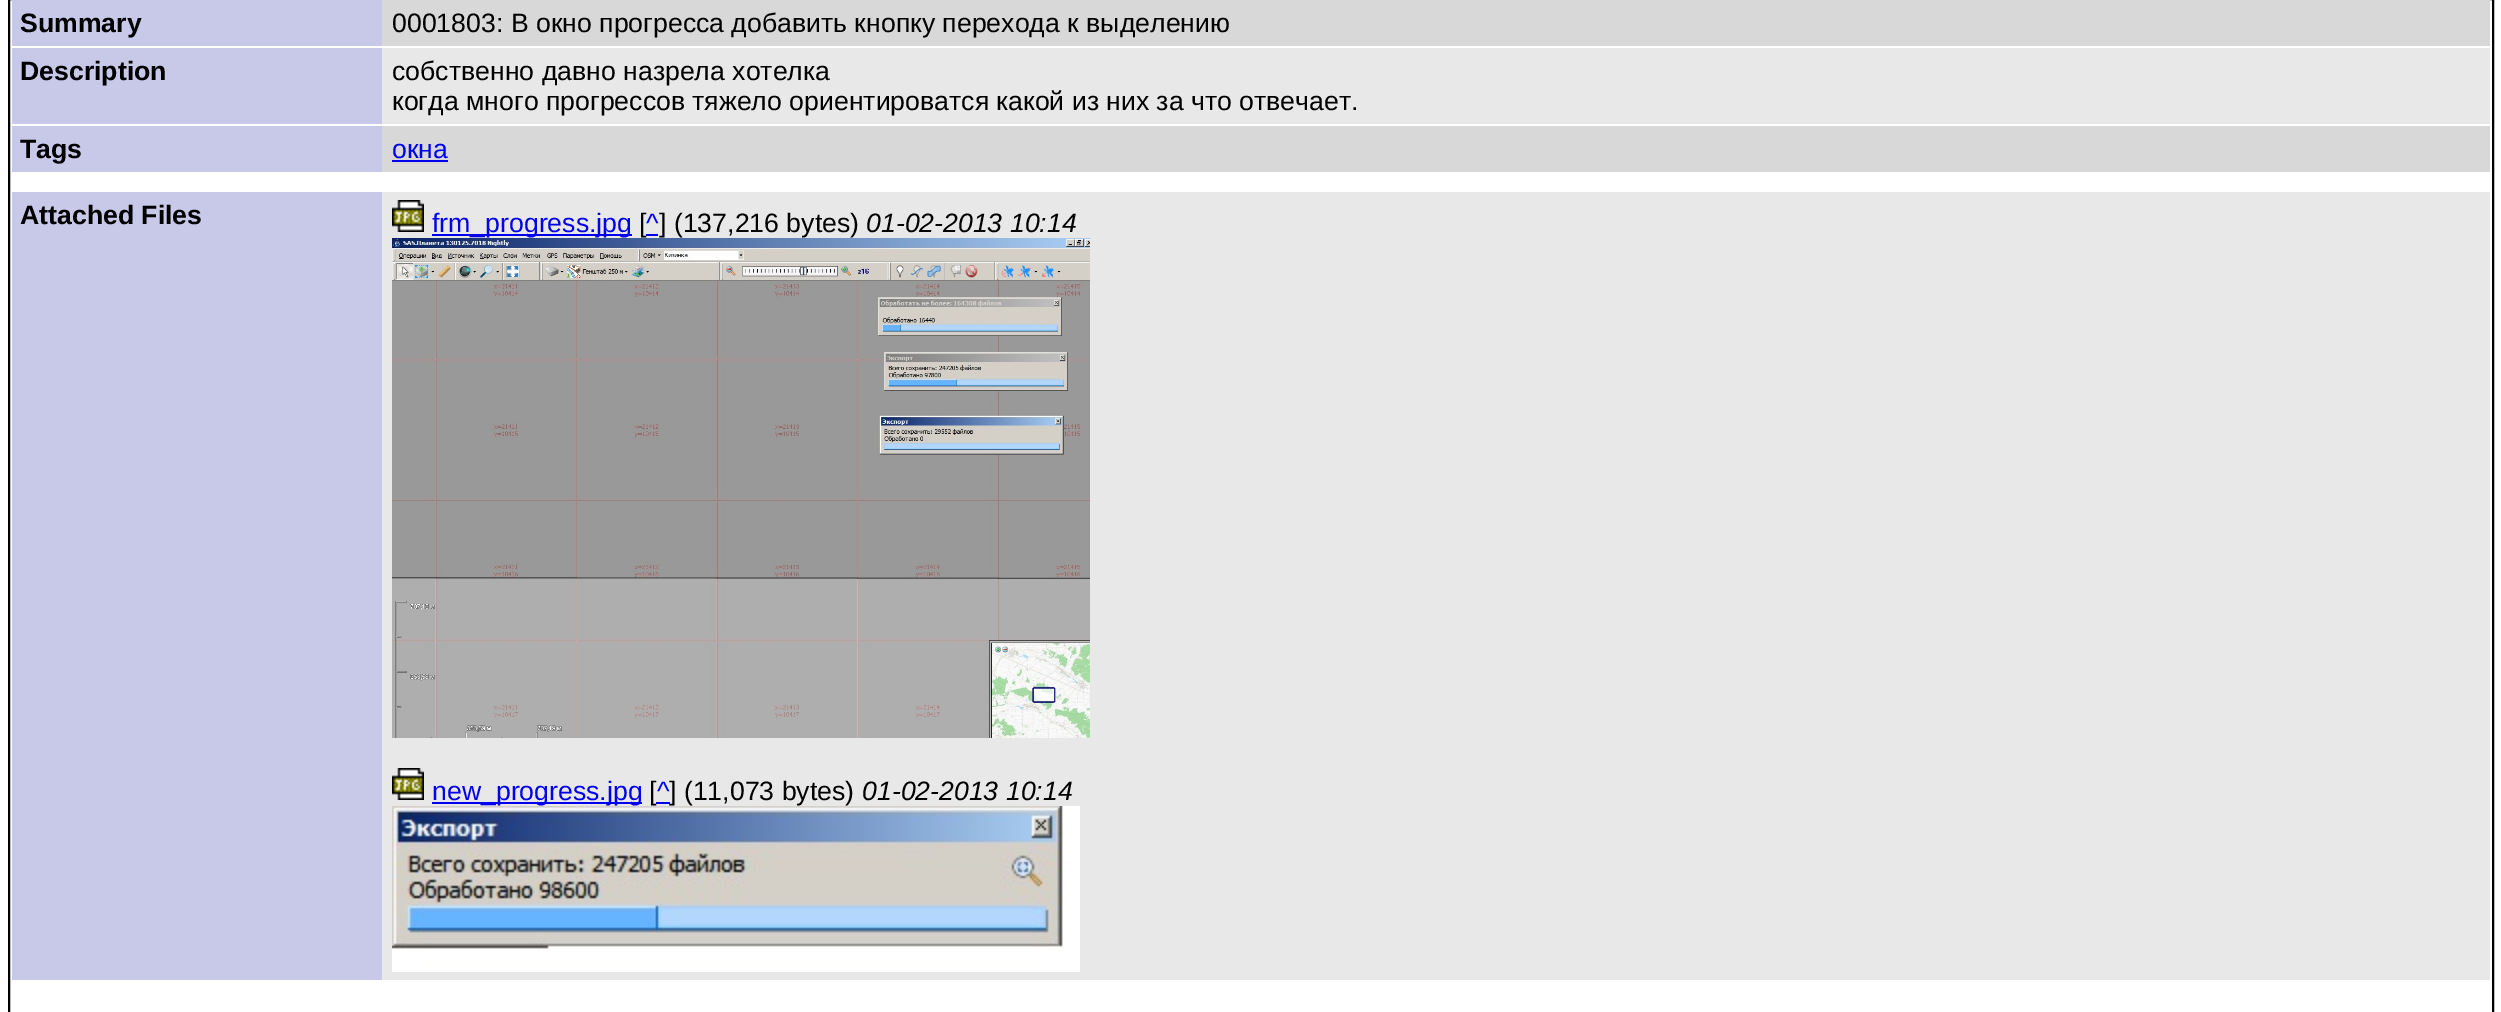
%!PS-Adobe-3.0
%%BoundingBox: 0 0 2501 1012
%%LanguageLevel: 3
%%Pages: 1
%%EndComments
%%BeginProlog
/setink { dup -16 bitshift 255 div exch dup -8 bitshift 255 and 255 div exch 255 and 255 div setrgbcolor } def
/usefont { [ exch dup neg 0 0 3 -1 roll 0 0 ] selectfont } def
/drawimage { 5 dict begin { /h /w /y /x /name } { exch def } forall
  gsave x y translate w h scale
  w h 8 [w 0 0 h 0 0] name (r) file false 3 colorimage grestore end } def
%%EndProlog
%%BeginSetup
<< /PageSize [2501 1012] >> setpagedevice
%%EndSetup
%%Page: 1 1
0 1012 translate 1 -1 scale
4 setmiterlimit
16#FFFFFF setink
0 0 2501 1012 rectfill
16#000000 setink
2 setlinewidth
9 -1 2484 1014 rectstroke
16#D8D8D8 setink
382 0 2108 46 rectfill
16#C8C8E8 setink
12 0 370 46 rectfill
/LiberationSans-Bold 26.65 usefont
16#000000 setink
20 32 moveto (Summary) show
/LiberationSans-Regular 26.65 usefont
392 32 moveto (0001803: В окно прогресса добавить кнопку перехода к выделению) show
16#E8E8E8 setink
382 48 2108 76 rectfill
16#C8C8E8 setink
12 48 370 76 rectfill
/LiberationSans-Bold 26.65 usefont
16#000000 setink
20 80 moveto (Description) show
/LiberationSans-Regular 26.65 usefont
392 80 moveto (собственно давно назрела хотелка) show
392 110 moveto (когда много прогрессов тяжело ориентироватся какой из них за что отвечает.) show
16#D8D8D8 setink
382 126 2108 46 rectfill
16#C8C8E8 setink
12 126 370 46 rectfill
/LiberationSans-Bold 26.65 usefont
16#000000 setink
20 158 moveto (Tags) show
/LiberationSans-Regular 26.65 usefont
16#0000EE setink
392 158 moveto (окна) show
[
    [392 160 56 2 16#0000EE]
    [382 192 2108 788 16#E8E8E8]
    [12 192 370 788 16#C8C8E8]
] { aload pop setink rectfill } forall
/LiberationSans-Bold 26.65 usefont
16#000000 setink
20 224 moveto (Attached Files) show
(img1.raw) 392 200 32 32 drawimage
16#0000EE setink
432 234 200 2 rectfill
/LiberationSans-Regular 26.65 usefont
432 232 moveto (frm_progress.jpg) show
16#000000 setink
639 232 moveto ([) show
16#0000EE setink
646 232 moveto (^) show
646 234 12 2 rectfill
16#000000 setink
659 232 moveto (] \(137,216 bytes\)) show
/LiberationSans-Italic 26.65 usefont
866 232 moveto (01-02-2013 10:14) show
(img2.raw) 392 238 698 500 drawimage
(img1.raw) 392 768 32 32 drawimage
16#0000EE setink
432 802 210 2 rectfill
/LiberationSans-Regular 26.65 usefont
432 800 moveto (new_progress.jpg) show
16#000000 setink
649 800 moveto ([) show
16#0000EE setink
657 800 moveto (^) show
656 802 14 2 rectfill
16#000000 setink
669 800 moveto (] \(11,073 bytes\)) show
/LiberationSans-Italic 26.65 usefont
862 800 moveto (01-02-2013 10:14) show
(img3.raw) 392 806 688 166 drawimage
showpage
%%EOF
